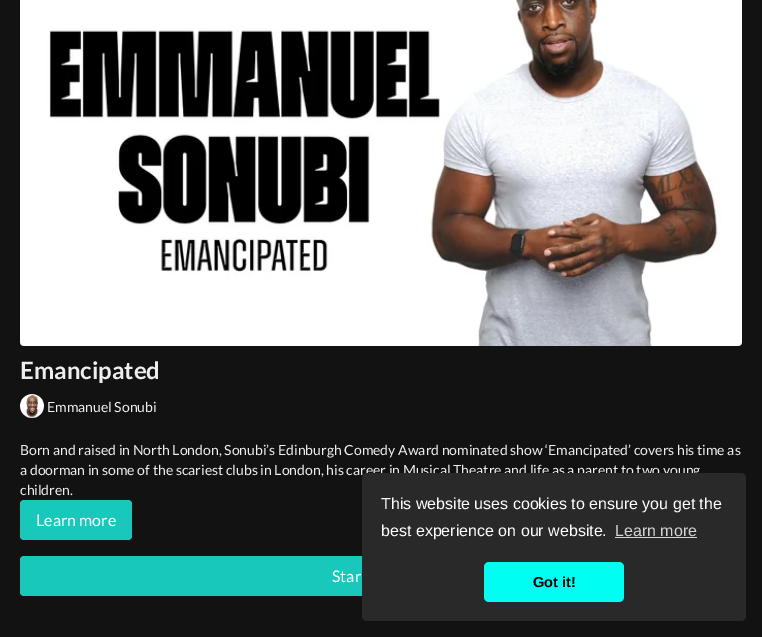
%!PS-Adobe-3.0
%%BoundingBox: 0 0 762 637
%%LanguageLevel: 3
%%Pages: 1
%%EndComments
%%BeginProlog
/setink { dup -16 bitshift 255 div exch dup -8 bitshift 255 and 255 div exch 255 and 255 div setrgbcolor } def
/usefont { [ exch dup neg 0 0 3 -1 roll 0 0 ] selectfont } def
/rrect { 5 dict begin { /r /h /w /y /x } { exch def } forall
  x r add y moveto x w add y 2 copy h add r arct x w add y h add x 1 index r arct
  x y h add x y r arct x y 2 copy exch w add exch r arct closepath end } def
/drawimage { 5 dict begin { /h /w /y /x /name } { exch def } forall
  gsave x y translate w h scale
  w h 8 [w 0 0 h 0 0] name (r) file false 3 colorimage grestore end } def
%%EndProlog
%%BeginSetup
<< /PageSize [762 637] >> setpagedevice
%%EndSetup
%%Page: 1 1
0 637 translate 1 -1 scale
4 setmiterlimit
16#121212 setink
0 0 762 637 rectfill
(img1.raw) 20 0 722 346 drawimage
/Lato-Bold 24 usefont
16#EEEEEE setink
20 379 moveto (Emancipated) show
(img2.raw) 20 394 24 24 drawimage
/Lato-Regular 14 usefont
[
    [(Emmanuel Sonubi) 47 412]
    [(Born and raised in North London, Sonubi’s Edinburgh Comedy Award nominated show ‘Emancipated’ covers his time as) 20 455]
    [(a doorman in some of the scariest clubs in London, his career in Musical Theatre and life as a parent to two young) 20 475]
    [(children.) 20 495]
] { aload pop moveto show } forall
16#17C8BB setink
20 500 112 40 4 rrect fill
/Lato-Regular 16 usefont
16#FFFFFF setink
36 526 moveto (Learn more) show
16#17C8BB setink
20 556 722 40 4 rrect fill
16#FFFFFF setink
332 582 moveto (Star) show
16#292929 setink
362 473 384 148 5 rrect fill
/LiberationSans-Regular 16 usefont
16#FFFFFF setink
381 509 moveto (This website uses cookies to ensure you get the) show
381 536 moveto (best experience on our website.) show
16#D4D4D4 setink
615 536 moveto (Learn more) show
615 537 82 1 rectfill
16#00FFF2 setink
484 562 140 40 5 rrect fill
/LiberationSans-Bold 14.5 usefont
16#000000 setink
533 587 moveto (Got it!) show
showpage
%%EOF
